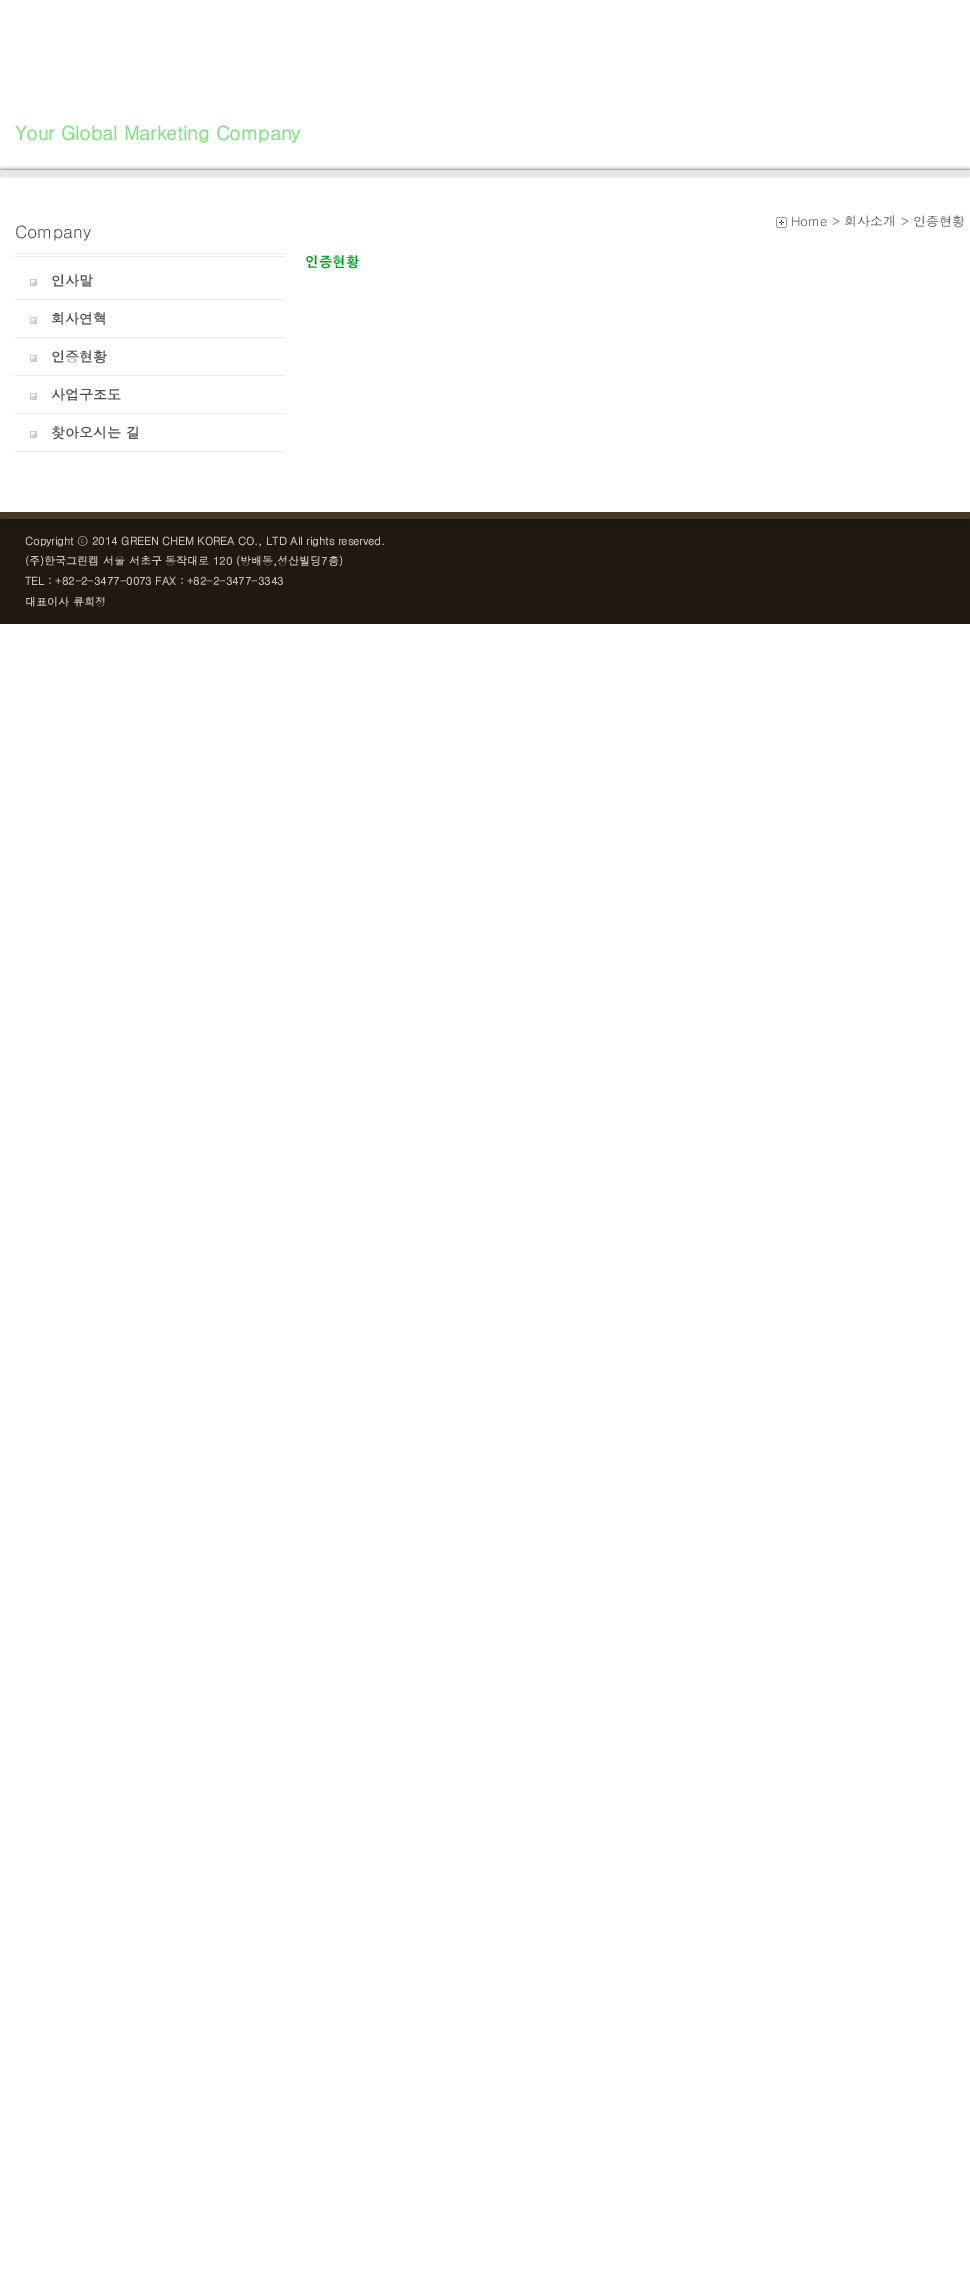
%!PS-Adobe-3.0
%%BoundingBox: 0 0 970 2277
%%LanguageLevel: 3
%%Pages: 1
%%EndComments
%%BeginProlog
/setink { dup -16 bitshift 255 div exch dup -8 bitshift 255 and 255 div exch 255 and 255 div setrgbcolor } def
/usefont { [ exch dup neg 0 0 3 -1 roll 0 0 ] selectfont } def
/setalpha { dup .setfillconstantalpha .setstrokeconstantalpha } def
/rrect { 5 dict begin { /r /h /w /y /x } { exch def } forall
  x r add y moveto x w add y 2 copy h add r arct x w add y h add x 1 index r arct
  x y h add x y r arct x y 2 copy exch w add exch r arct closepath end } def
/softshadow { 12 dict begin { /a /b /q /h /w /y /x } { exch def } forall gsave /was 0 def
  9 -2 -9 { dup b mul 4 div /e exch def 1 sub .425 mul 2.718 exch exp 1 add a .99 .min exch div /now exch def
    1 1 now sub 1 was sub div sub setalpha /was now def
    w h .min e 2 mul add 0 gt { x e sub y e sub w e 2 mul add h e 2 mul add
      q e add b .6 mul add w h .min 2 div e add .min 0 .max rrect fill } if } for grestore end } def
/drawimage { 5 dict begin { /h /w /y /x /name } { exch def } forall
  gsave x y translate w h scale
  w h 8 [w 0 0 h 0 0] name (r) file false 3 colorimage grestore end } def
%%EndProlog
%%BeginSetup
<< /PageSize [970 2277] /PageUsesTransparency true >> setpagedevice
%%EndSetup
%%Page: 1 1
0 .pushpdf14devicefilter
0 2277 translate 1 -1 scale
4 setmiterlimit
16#FFFFFF setink
0 0 970 2277 rectfill
/Dotum-Bold 19 usefont
16#84E284 setink
15 140 moveto (Your Global Marketing Company) show
16#333333 setink
1 170 968 4 0 2 1 softshadow
16#E7E7E7 setink
0 170 970 6 rectfill
/Dotum-Regular 17 usefont
16#494949 setink
15 238 moveto (Company) show
[
    [15 253 270 1 16#ECECEC]
    [15 256 270 1 16#ECECEC]
    [15 299 270 1 16#ECECEC]
] { aload pop setink rectfill } forall
(img1.raw) 30 279 7 7 drawimage
/Dotum-Bold 14 usefont
16#4F4F4F setink
51 286 moveto (인사말) show
16#ECECEC setink
15 337 270 1 rectfill
(img1.raw) 30 317 7 7 drawimage
16#4F4F4F setink
51 324 moveto (회사연혁) show
16#ECECEC setink
15 375 270 1 rectfill
(img1.raw) 30 355 7 7 drawimage
16#4F4F4F setink
51 362 moveto (인증현황) show
16#ECECEC setink
15 413 270 1 rectfill
(img1.raw) 30 393 7 7 drawimage
16#4F4F4F setink
51 400 moveto (사업구조도) show
16#ECECEC setink
15 451 270 1 rectfill
(img1.raw) 30 431 7 7 drawimage
16#4F4F4F setink
51 438 moveto (찾아오시는 길) show
(img2.raw) 776 217 11 11 drawimage
/Dotum-Regular 13 usefont
791 226 moveto (Home) show
16#666666 setink
832 226 moveto (>) show
16#4F4F4F setink
844 226 moveto (회사소개) show
16#666666 setink
901 226 moveto (>) show
16#4F4F4F setink
913 226 moveto (인증현황) show
/NanumGothicCoding-Bold 13.5 usefont
16#009E25 setink
305 266 moveto (인증현황) show
16#1F1911 setink
0 519 970 105 rectfill
gsave
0 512 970 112 rectclip
16#111111 setink
0 512 970 7 0 3 1 softshadow
grestore
16#43392B setink
0 512 970 7 rectfill
/Dotum-Bold 11 usefont
16#CFC2AE setink
[
    [(Copyright ⓒ 2014 GREEN CHEM KOREA CO., LTD All rights reserved.) 25 545]
    [(\(주\)한국그린켐 서울 서초구 동작대로 120 \(방배동,성산빌딩7층\)) 25 565]
    [(TEL : +82-2-3477-0073 FAX : +82-2-3477-3343) 25 585]
    [(대표이사 류희정) 25 606]
] { aload pop moveto show } forall
.poppdf14devicefilter showpage
%%EOF
